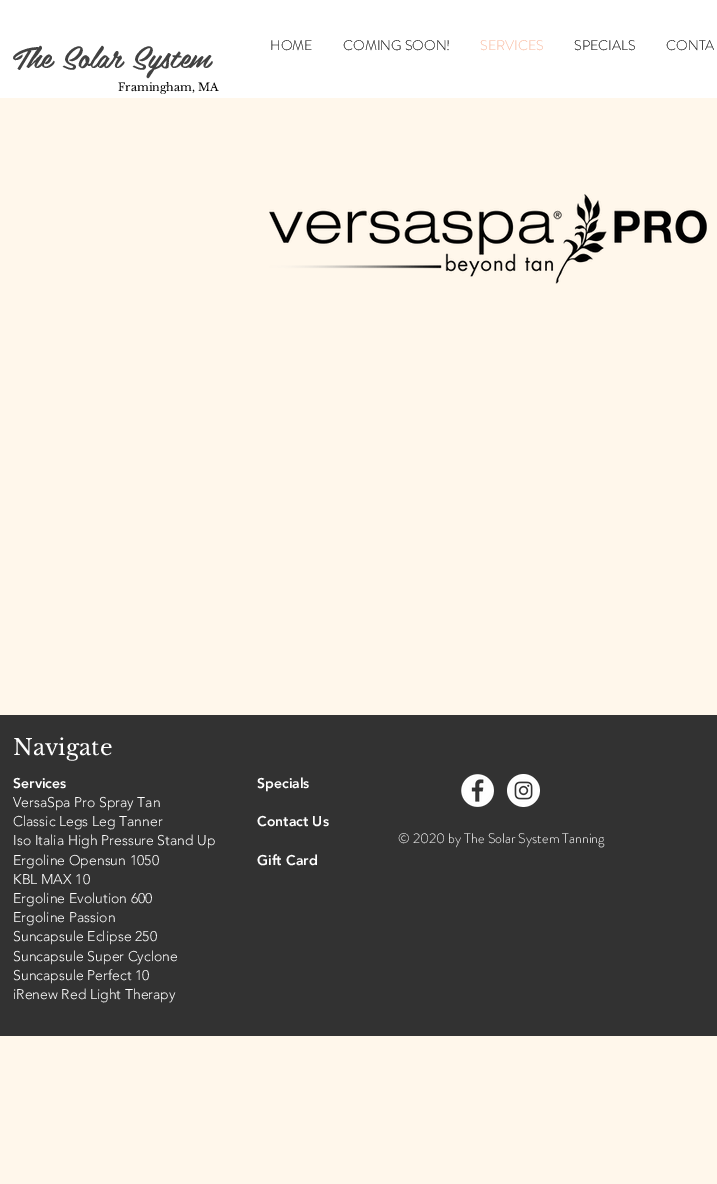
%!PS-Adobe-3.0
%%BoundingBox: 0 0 717 1184
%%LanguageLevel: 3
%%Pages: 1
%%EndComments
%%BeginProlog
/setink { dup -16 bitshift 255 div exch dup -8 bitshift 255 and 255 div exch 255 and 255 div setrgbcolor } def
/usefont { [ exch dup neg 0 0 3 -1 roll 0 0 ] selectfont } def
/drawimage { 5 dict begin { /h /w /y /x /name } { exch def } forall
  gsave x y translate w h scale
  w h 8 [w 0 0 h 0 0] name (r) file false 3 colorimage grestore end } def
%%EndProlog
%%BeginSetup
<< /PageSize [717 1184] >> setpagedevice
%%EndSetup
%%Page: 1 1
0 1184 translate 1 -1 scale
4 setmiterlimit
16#FFF7EB setink
0 0 717 1184 rectfill
16#FFFFFF setink
0 0 717 98 rectfill
/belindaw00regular-Regular 30 usefont
16#424242 setink
13 68 moveto (The Solar System) show
/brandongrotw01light-Light 14 usefont
16#000000 setink
270 50 moveto (HOME) show
343 50 moveto (COMING SOON!) show
16#FAB89D setink
480 50 moveto (SERVICES) show
16#000000 setink
574 50 moveto (SPECIALS) show
666 50 moveto (CONTA) show
/LibreBaskerville-Regular 11 usefont
118 91 moveto (Framingham, MA) show
(img1.raw) 269 194 438 90 drawimage
16#323232 setink
0 715 717 321 rectfill
/LibreBaskerville-Regular 22 usefont
16#FFFFFF setink
13 755 moveto (Navigate) show
/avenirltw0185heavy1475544-Black 14 usefont
13 788 moveto (Services) show
/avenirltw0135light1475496-Light 14 usefont
[
    [(VersaSpa Pro Spray Tan) 13 807]
    [(Classic Legs Leg Tanner) 13 826]
    [(Iso Italia High Pressure Stand Up) 13 845]
    [(Ergoline Opensun 1050) 13 865]
    [(KBL MAX 10) 13 884]
    [(Ergoline Evolution 600) 13 903]
    [(Ergoline Passion) 13 922]
    [(Suncapsule Eclipse 250) 13 941]
    [(Suncapsule Super Cyclone) 13 961]
    [(Suncapsule Perfect 10) 13 980]
    [(iRenew Red Light Therapy) 13 999]
] { aload pop moveto show } forall
/avenirltw0185heavy1475544-Black 14 usefont
[
    [(Specials) 257 788]
    [(Contact Us) 257 826]
    [(Gift Card) 257 865]
] { aload pop moveto show } forall
(img2.raw) 461 774 33 33 drawimage
(img3.raw) 507 774 33 33 drawimage
/brandongrotw01light-Light 14 usefont
398 843 moveto (© 2020 by The Solar System Tanning) show
showpage
%%EOF
